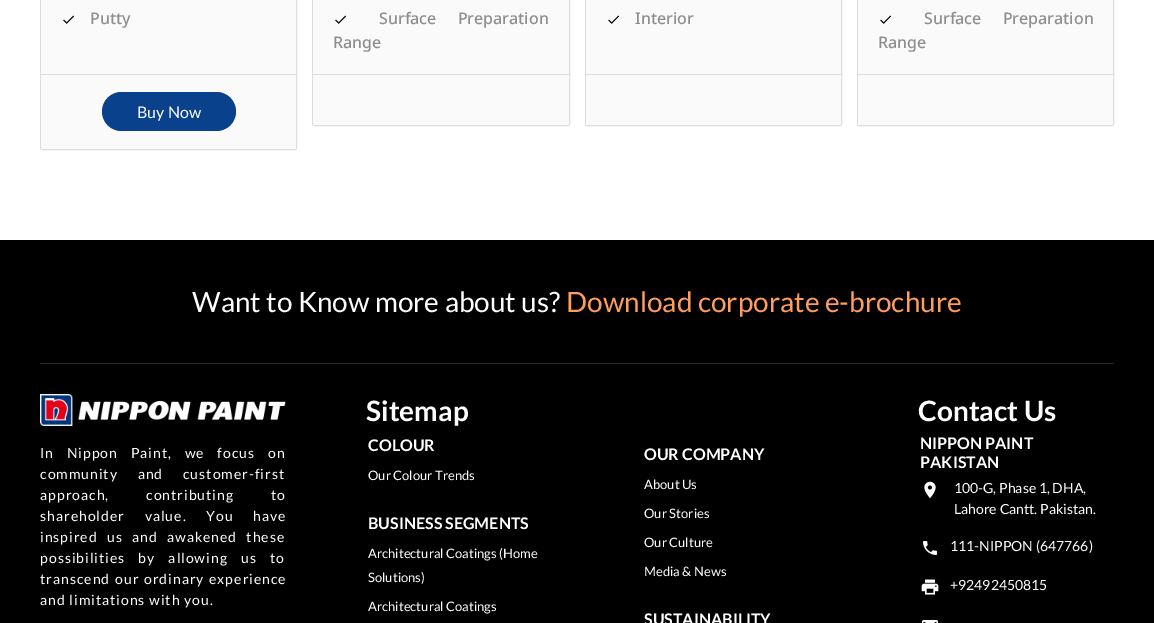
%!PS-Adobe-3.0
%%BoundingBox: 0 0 1154 623
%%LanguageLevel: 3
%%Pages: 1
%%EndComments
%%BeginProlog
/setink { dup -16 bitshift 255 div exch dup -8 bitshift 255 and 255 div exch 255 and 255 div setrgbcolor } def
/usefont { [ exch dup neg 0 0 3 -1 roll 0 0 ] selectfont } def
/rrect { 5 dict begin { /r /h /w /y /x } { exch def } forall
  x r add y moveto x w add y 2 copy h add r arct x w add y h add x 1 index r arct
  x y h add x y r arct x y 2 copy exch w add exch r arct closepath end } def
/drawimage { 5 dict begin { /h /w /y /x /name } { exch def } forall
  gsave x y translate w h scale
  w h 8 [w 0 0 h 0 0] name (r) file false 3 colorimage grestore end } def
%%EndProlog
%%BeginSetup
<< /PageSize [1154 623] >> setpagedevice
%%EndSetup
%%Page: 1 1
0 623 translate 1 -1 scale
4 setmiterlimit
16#FFFFFF setink
0 0 1154 623 rectfill
16#DDDDDD setink
40.5 -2.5 256 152 1.5 rrect stroke
16#FAFAFA setink
41 0 255 74 rectfill
(img1.raw) 63 15 12 9 drawimage
/NotoSans-Medium 16 usefont
16#8E8E8E setink
90 24 moveto (Putty) show
16#FAFAFA setink
41 75 255 74 rectfill
16#DDDDDD setink
41 74 255 1 rectfill
16#0A418C setink
102 92 134 39 19.5 rrect fill
/Lato-Regular 16 usefont
16#FFFFFF setink
137 118 moveto (Buy Now) show
16#DDDDDD setink
312.5 -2.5 257 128 1.5 rrect stroke
16#FAFAFA setink
313 0 256 74 rectfill
(img1.raw) 335 15 12 9 drawimage
/NotoSans-Medium 16 usefont
16#8E8E8E setink
379 24 moveto 17 0 32 (Surface Preparation) widthshow
333 48 moveto (Range) show
16#FAFAFA setink
313 75 256 50 rectfill
16#DDDDDD setink
313 74 256 1 rectfill
585.5 -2.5 256 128 1.5 rrect stroke
16#FAFAFA setink
586 0 255 74 rectfill
(img1.raw) 608 15 12 9 drawimage
16#8E8E8E setink
635 24 moveto (Interior) show
16#FAFAFA setink
586 75 255 50 rectfill
16#DDDDDD setink
586 74 255 1 rectfill
857.5 -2.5 256 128 1.5 rrect stroke
16#FAFAFA setink
858 0 255 74 rectfill
(img1.raw) 880 15 12 9 drawimage
16#8E8E8E setink
924 24 moveto 17 0 32 (Surface Preparation) widthshow
878 48 moveto (Range) show
[
    [858 75 255 50 16#FAFAFA]
    [858 74 255 1 16#DDDDDD]
    [0 240 1154 383 16#000000]
    [40 363 1074 1 16#212529]
] { aload pop setink rectfill } forall
/Lato-Regular 28 usefont
16#FFFFFF setink
192 312 moveto (Want to Know more about us?) show
16#FF9D5C setink
566 312 moveto (Download corporate e-brochure) show
(img2.raw) 40 394 246 32 drawimage
/Lato-Regular 14 usefont
16#FFFFFF setink
40 458 moveto 9 0 32 1 0 (In Nippon Paint, we focus on) awidthshow
40 479 moveto 16 0 32 1 0 (community and customer-first) awidthshow
40 500 moveto 33 0 32 1 0 (approach, contributing to) awidthshow
40 521 moveto 16 0 32 1 0 (shareholder value. You have) awidthshow
40 542 moveto 5.5 0 32 1 0 (inspired us and awakened these) awidthshow
40 563 moveto 9.5 0 32 1 0 (possibilities by allowing us to) awidthshow
40 584 moveto 1 0 32 1 0 (transcend our ordinary experience) awidthshow
40 605 moveto 1 0 (and limitations with you.) ashow
/Lato-Bold 28 usefont
366 421 moveto (Sitemap) show
/Lato-Bold 16 usefont
368 451 moveto (COLOUR) show
/Lato-Regular 13 usefont
368 480 moveto (Our Colour Trends) show
/Lato-Bold 16 usefont
368 529 moveto (BUSINESS SEGMENTS) show
/Lato-Regular 13 usefont
[
    [(Architectural Coatings \(Home) 368 558]
    [(Solutions\)) 368 582]
    [(Architectural Coatings) 368 611]
] { aload pop moveto show } forall
/Lato-Bold 16 usefont
644 460 moveto (OUR COMPANY) show
/Lato-Regular 13 usefont
[
    [(About Us) 644 489]
    [(Our Stories) 644 518]
    [(Our Culture) 644 547]
    [(Media & News) 644 576]
] { aload pop moveto show } forall
/Lato-Bold 16 usefont
644 625 moveto (SUSTAINABILITY) show
/Lato-Bold 28 usefont
918 421 moveto (Contact Us) show
/Lato-Bold 16 usefont
920 449 moveto (NIPPON PAINT) show
920 468 moveto (PAKISTAN) show
(img3.raw) 924 481 12 18 drawimage
/Lato-Regular 14 usefont
954 493 moveto (100-G, Phase 1, DHA,) show
954 514 moveto (Lahore Cantt. Pakistan.) show
(img4.raw) 923 541 14 14 drawimage
950 551 moveto (111-NIPPON \(647766\)) show
(img5.raw) 921 579 18 16 drawimage
950 590 moveto (+92492450815) show
(img6.raw) 922 620 16 3 drawimage
showpage
%%EOF
